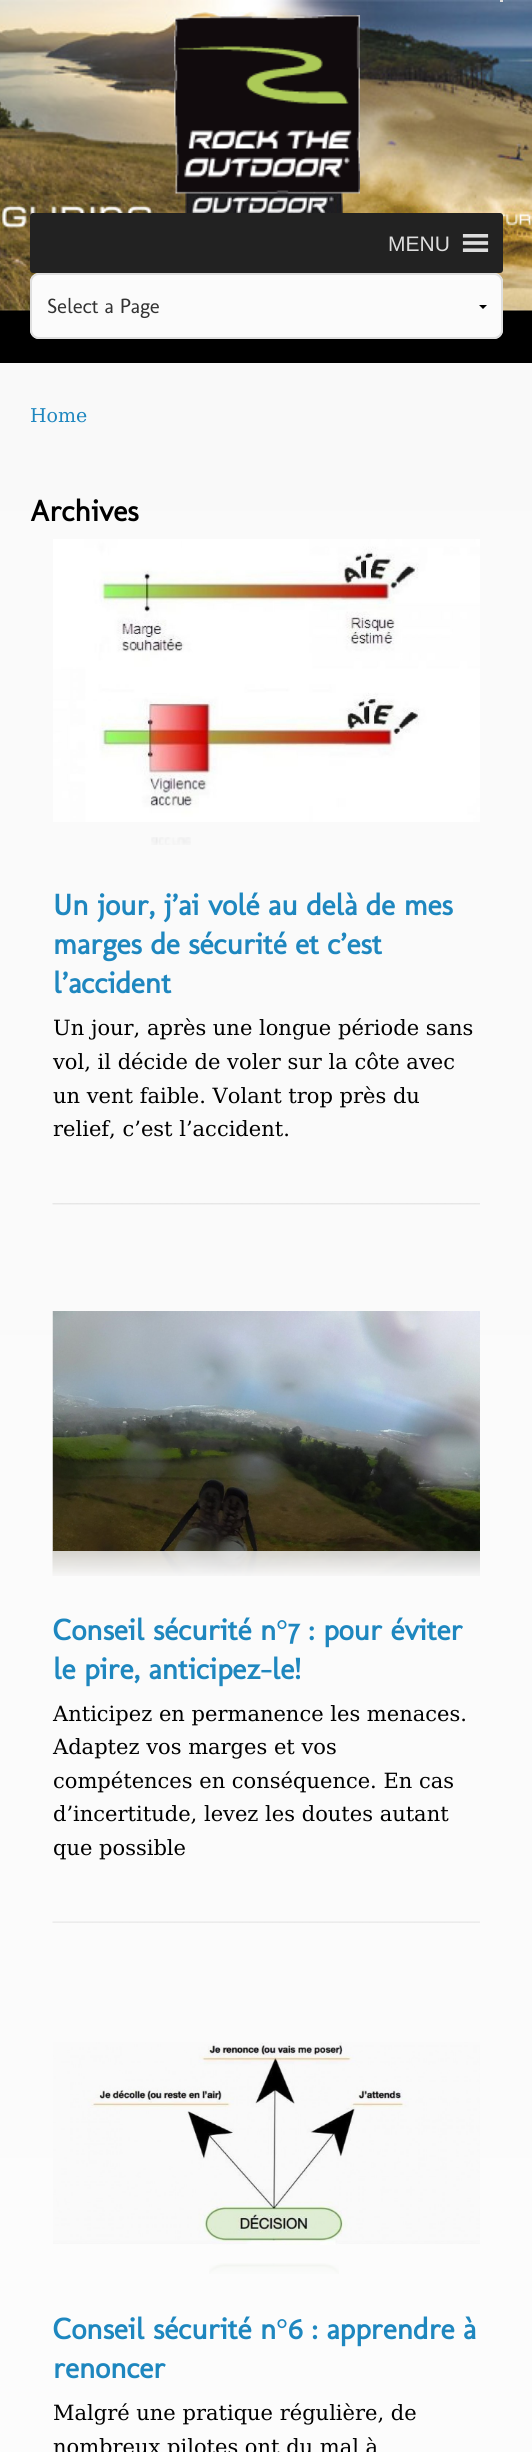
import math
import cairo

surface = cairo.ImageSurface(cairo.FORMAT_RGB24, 532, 2452)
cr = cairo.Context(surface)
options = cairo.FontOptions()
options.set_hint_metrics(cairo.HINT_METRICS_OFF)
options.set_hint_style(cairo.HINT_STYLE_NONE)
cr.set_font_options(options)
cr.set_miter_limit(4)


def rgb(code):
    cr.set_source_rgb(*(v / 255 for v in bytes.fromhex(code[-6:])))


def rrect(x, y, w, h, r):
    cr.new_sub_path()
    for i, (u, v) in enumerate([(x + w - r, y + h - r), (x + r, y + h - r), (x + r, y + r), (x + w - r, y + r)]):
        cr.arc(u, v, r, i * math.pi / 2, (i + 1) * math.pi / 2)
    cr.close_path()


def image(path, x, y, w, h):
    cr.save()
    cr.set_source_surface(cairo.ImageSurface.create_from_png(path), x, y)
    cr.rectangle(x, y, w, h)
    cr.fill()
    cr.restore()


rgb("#ffffff")
cr.paint()
rgb("#000000")
cr.rectangle(0, 310, 532, 53)
cr.fill()
image("img/1.png", 0, 0, 532, 311)
rgb("#dfdfdf")
cr.rectangle(500, 0, 3, 2)
cr.fill()
image("img/2.png", 174, 15, 186, 179)
rgb("#222222")
rrect(30, 213, 473, 60, 3)
cr.fill()
image("img/3.png", 462, 234, 27, 18)
rgb("#fbfbfb")
rrect(30, 273, 473, 66, 9)
cr.fill()
cr.save()
cr.rectangle(465, 305, 36, 5)
cr.clip()
rgb("#000000")
cr.new_path()
cr.move_to(487.5, 304.5)
cr.line_to(483, 309)
cr.line_to(478.5, 304.5)
cr.close_path()
cr.fill()
cr.restore()
rrect(31, 274, 471, 64, 8)
rgb("#dfdfdf")
cr.stroke()
gradient = cairo.LinearGradient(0, 0, 0, 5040)
gradient.add_color_stop_rgba(0, 0.976, 0.976, 0.976, 1)
gradient.add_color_stop_rgba(1, 1, 1, 1, 1)
cr.set_source(gradient)
cr.rectangle(0, 363, 532, 2089)
cr.fill()
image("img/4.png", 53, 539, 427, 283)
image("img/5.png", 151, 837, 40, 8)
image("img/6.png", 52, 1203, 428, 2)
image("img/7.png", 52, 1311, 428, 240)
image("img/8.png", 52, 1551, 428, 25)
image("img/9.png", 52, 1921, 428, 2)
image("img/10.png", 53, 2042, 427, 203)
image("img/11.png", 209, 2263, 130, 11)
cr.select_font_face("Liberation Sans")
cr.set_font_size(21)
rgb("#dddddd")
cr.move_to(388, 251)
cr.show_text("MENU")
cr.select_font_face("Molengo")
rgb("#333333")
cr.move_to(47, 313)
cr.show_text("Select a Page")
cr.select_font_face("DejaVu Serif")
cr.set_font_size(19)
rgb("#1e87bf")
cr.move_to(30, 422)
cr.show_text("Home")
cr.select_font_face("Molengo", cairo.FONT_SLANT_NORMAL, cairo.FONT_WEIGHT_BOLD)
cr.set_font_size(30)
rgb("#000000")
cr.move_to(30, 521)
cr.show_text("Archives")
rgb("#1e87bf")
for x, y, s in [
    (53, 915, "Un jour, j’ai volé au delà de mes"),
    (53, 954, "marges de sécurité et c’est"),
    (53, 993, "l’accident"),
]:
    cr.move_to(x, y)
    cr.show_text(s)
cr.select_font_face("DejaVu Serif")
cr.set_font_size(21)
rgb("#000000")
for x, y, s in [
    (53, 1035, "Un jour, après une longue période sans"),
    (53, 1069, "vol, il décide de voler sur la côte avec"),
    (53, 1103, "un vent faible. Volant trop près du"),
    (53, 1136, "relief, c’est l’accident."),
]:
    cr.move_to(x, y)
    cr.show_text(s)
cr.select_font_face("Molengo", cairo.FONT_SLANT_NORMAL, cairo.FONT_WEIGHT_BOLD)
cr.set_font_size(30)
rgb("#1e87bf")
cr.move_to(53, 1640)
cr.show_text("Conseil sécurité n")
cr.select_font_face("Liberation Serif", cairo.FONT_SLANT_NORMAL, cairo.FONT_WEIGHT_BOLD)
cr.move_to(276, 1640)
cr.show_text("°")
cr.select_font_face("Molengo", cairo.FONT_SLANT_NORMAL, cairo.FONT_WEIGHT_BOLD)
cr.move_to(288, 1640)
cr.show_text("7 : pour éviter")
cr.move_to(53, 1679)
cr.show_text("le pire, anticipez-le!")
cr.select_font_face("DejaVu Serif")
cr.set_font_size(21)
rgb("#000000")
for x, y, s in [
    (53, 1721, "Anticipez en permanence les menaces."),
    (53, 1754, "Adaptez vos marges et vos"),
    (53, 1788, "compétences en conséquence. En cas"),
    (53, 1821, "d’incertitude, levez les doutes autant"),
    (53, 1855, "que possible"),
]:
    cr.move_to(x, y)
    cr.show_text(s)
cr.select_font_face("Molengo", cairo.FONT_SLANT_NORMAL, cairo.FONT_WEIGHT_BOLD)
cr.set_font_size(30)
rgb("#1e87bf")
cr.move_to(53, 2339)
cr.show_text("Conseil sécurité n")
cr.select_font_face("Liberation Serif", cairo.FONT_SLANT_NORMAL, cairo.FONT_WEIGHT_BOLD)
cr.move_to(276, 2339)
cr.show_text("°")
cr.select_font_face("Molengo", cairo.FONT_SLANT_NORMAL, cairo.FONT_WEIGHT_BOLD)
cr.move_to(288, 2339)
cr.show_text("6 : apprendre à")
cr.move_to(53, 2378)
cr.show_text("renoncer")
cr.select_font_face("DejaVu Serif")
cr.set_font_size(21)
rgb("#000000")
cr.move_to(53, 2420)
cr.show_text("Malgré une pratique régulière, de")
cr.move_to(53, 2454)
cr.show_text("nombreux pilotes ont du mal à")
surface.write_to_png("page.png")
